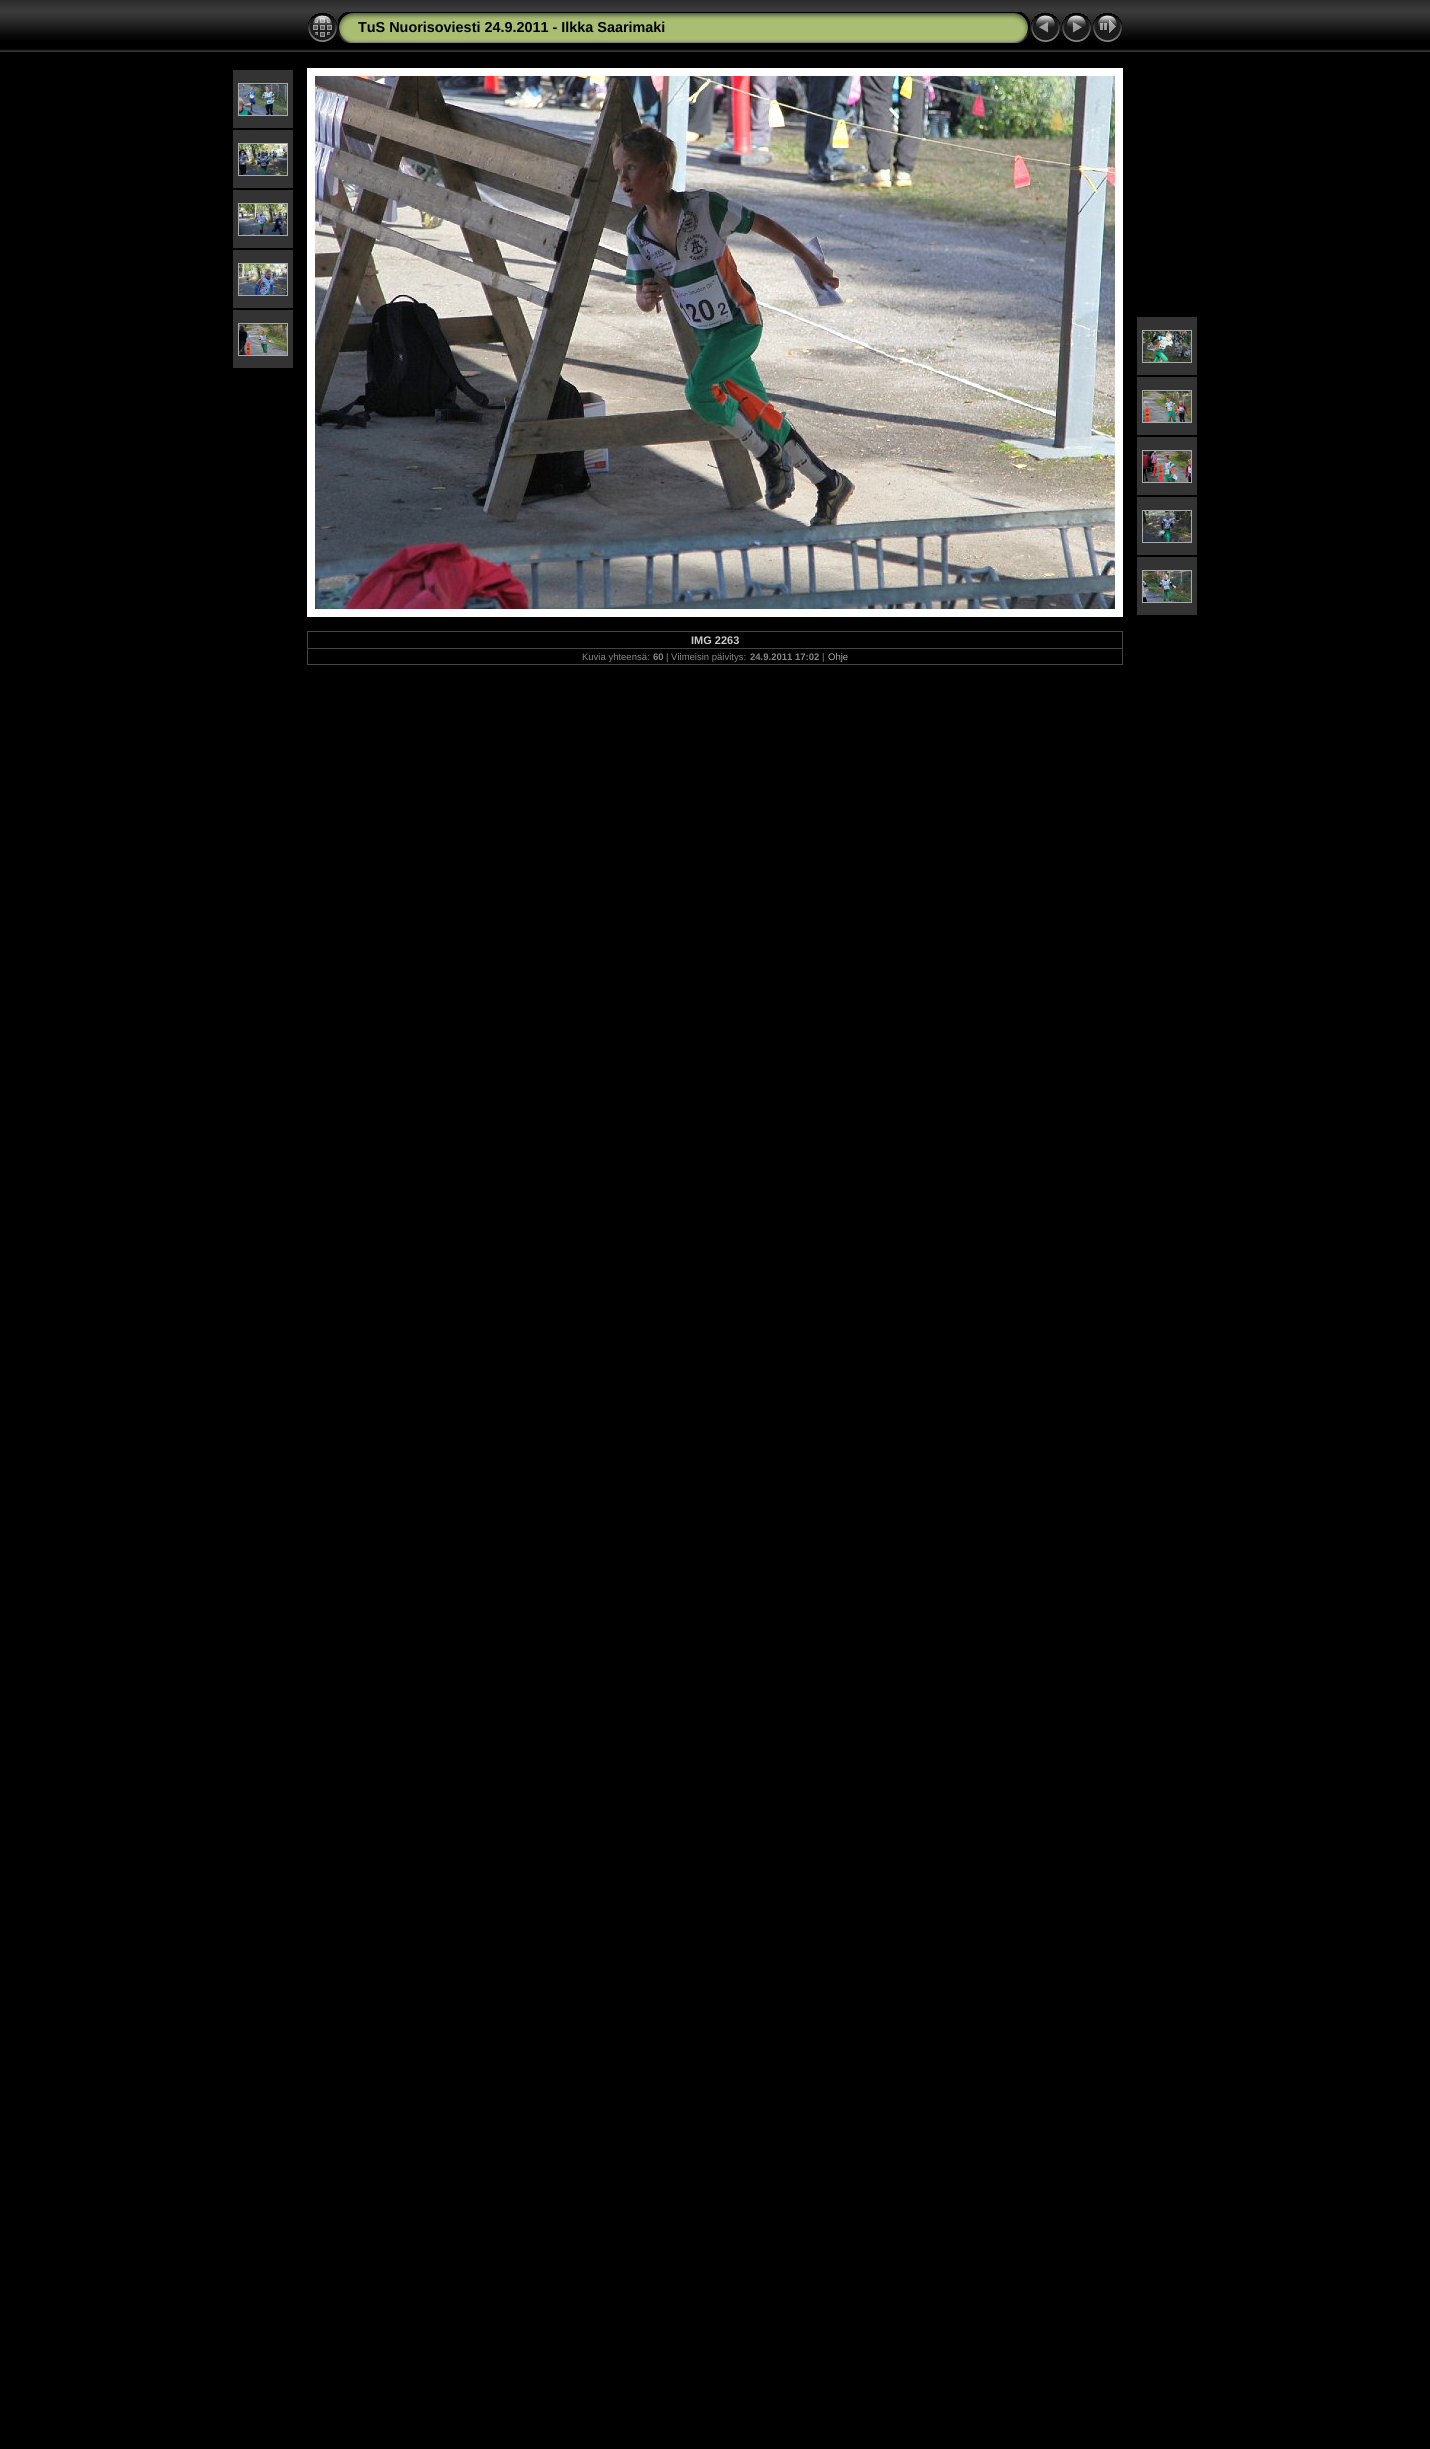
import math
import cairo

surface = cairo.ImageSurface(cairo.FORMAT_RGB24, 1430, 2449)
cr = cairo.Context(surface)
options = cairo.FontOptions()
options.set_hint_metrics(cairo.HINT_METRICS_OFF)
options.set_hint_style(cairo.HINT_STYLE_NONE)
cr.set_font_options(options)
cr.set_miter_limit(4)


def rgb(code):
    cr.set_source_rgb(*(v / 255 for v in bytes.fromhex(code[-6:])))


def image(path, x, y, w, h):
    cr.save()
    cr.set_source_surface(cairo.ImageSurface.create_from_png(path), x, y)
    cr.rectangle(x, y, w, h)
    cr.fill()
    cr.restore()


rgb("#000000")
cr.paint()
image("img/1.png", 0, 0, 1430, 52)
image("img/2.png", 308, 13, 29, 29)
image("img/3.png", 338, 12, 20, 31)
image("img/4.png", 358, 12, 652, 31)
image("img/5.png", 1010, 12, 20, 31)
image("img/6.png", 1031, 13, 29, 29)
image("img/7.png", 1062, 13, 29, 29)
image("img/8.png", 1093, 13, 29, 29)
rgb("#333333")
cr.rectangle(233, 70, 60, 58)
cr.fill()
cr.rectangle(238.5, 83.5, 49, 32)
rgb("#aaaaaa")
cr.set_line_width(1)
cr.stroke()
image("img/9.png", 239, 84, 48, 31)
rgb("#333333")
cr.rectangle(233, 130, 60, 58)
cr.fill()
cr.rectangle(238.5, 143.5, 49, 32)
rgb("#aaaaaa")
cr.stroke()
image("img/10.png", 239, 144, 48, 31)
rgb("#333333")
cr.rectangle(233, 190, 60, 58)
cr.fill()
cr.rectangle(238.5, 203.5, 49, 32)
rgb("#aaaaaa")
cr.stroke()
image("img/11.png", 239, 204, 48, 31)
rgb("#333333")
cr.rectangle(233, 250, 60, 58)
cr.fill()
cr.rectangle(238.5, 263.5, 49, 32)
rgb("#aaaaaa")
cr.stroke()
image("img/12.png", 239, 264, 48, 31)
rgb("#333333")
cr.rectangle(233, 310, 60, 58)
cr.fill()
cr.rectangle(238.5, 323.5, 49, 32)
rgb("#aaaaaa")
cr.stroke()
image("img/13.png", 239, 324, 48, 31)
cr.rectangle(311, 72, 808, 541)
rgb("#ffffff")
cr.set_line_width(8)
cr.stroke()
image("img/14.png", 315, 76, 800, 533)
rgb("#333333")
cr.rectangle(1137, 317, 60, 58)
cr.fill()
cr.rectangle(1142.5, 330.5, 49, 32)
rgb("#aaaaaa")
cr.set_line_width(1)
cr.stroke()
image("img/15.png", 1143, 331, 48, 31)
rgb("#333333")
cr.rectangle(1137, 377, 60, 58)
cr.fill()
cr.rectangle(1142.5, 390.5, 49, 32)
rgb("#aaaaaa")
cr.stroke()
image("img/16.png", 1143, 391, 48, 31)
rgb("#333333")
cr.rectangle(1137, 437, 60, 58)
cr.fill()
cr.rectangle(1142.5, 450.5, 49, 32)
rgb("#aaaaaa")
cr.stroke()
image("img/17.png", 1143, 451, 48, 31)
rgb("#333333")
cr.rectangle(1137, 497, 60, 58)
cr.fill()
cr.rectangle(1142.5, 510.5, 49, 32)
rgb("#aaaaaa")
cr.stroke()
image("img/18.png", 1143, 511, 48, 31)
rgb("#333333")
cr.rectangle(1137, 557, 60, 58)
cr.fill()
cr.rectangle(1142.5, 570.5, 49, 32)
rgb("#aaaaaa")
cr.stroke()
image("img/19.png", 1143, 571, 48, 31)
for x, y, w, h, color in [
    (307, 631, 816, 1, "#444444"),
    (1122, 631, 1, 34, "#444444"),
    (307, 664, 816, 1, "#444444"),
    (307, 631, 1, 34, "#444444"),
    (307, 648, 816, 1, "#444444"),
]:
    rgb(color)
    cr.rectangle(x, y, w, h)
    cr.fill()
cr.select_font_face("Liberation Sans", cairo.FONT_SLANT_NORMAL, cairo.FONT_WEIGHT_BOLD)
cr.set_font_size(14.4)
rgb("#000000")
cr.move_to(358, 32)
cr.show_text("TuS Nuorisoviesti 24.9.2011 - Ilkka Saarimaki")
cr.set_font_size(11)
rgb("#cccccc")
cr.move_to(691, 644)
cr.show_text("IMG 2263")
cr.select_font_face("Liberation Sans")
cr.set_font_size(9.5)
rgb("#888888")
cr.move_to(582, 660)
cr.show_text("Kuvia yhteensä:")
cr.select_font_face("Liberation Sans", cairo.FONT_SLANT_NORMAL, cairo.FONT_WEIGHT_BOLD)
cr.move_to(653, 660)
cr.show_text("60")
cr.select_font_face("Liberation Sans")
cr.move_to(666, 660)
cr.show_text("| Viimeisin päivitys:")
cr.select_font_face("Liberation Sans", cairo.FONT_SLANT_NORMAL, cairo.FONT_WEIGHT_BOLD)
cr.move_to(750, 660)
cr.show_text("24.9.2011 17:02")
cr.select_font_face("Liberation Sans")
cr.move_to(822, 660)
cr.show_text("|")
rgb("#aaaaaa")
cr.move_to(828, 660)
cr.show_text("Ohje")
surface.write_to_png("page.png")
